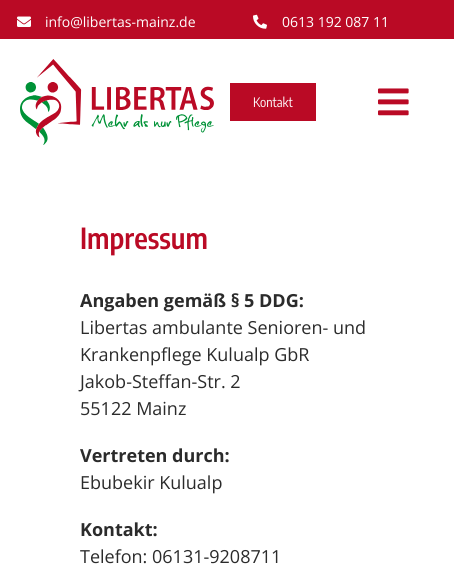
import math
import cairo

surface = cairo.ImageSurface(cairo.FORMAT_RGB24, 454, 568)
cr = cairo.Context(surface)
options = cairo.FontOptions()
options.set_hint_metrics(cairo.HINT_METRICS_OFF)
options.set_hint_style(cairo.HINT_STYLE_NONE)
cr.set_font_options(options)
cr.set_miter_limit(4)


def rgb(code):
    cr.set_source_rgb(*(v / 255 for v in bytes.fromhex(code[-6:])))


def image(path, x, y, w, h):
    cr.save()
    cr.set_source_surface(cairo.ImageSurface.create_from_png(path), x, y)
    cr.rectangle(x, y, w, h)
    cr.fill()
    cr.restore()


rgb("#ffffff")
cr.paint()
rgb("#ba0a25")
cr.rectangle(0, 0, 454, 39)
cr.fill()
image("img/1.png", 17, 16, 14, 11)
image("img/2.png", 253, 14, 14, 15)
image("img/3.png", 20, 59, 194, 86)
cr.rectangle(230, 83, 86, 38)
cr.fill()
image("img/4.png", 378, 88, 31, 28)
cr.select_font_face("Open Sans")
cr.set_font_size(14)
rgb("#ffffff")
cr.move_to(45, 27)
cr.show_text("info@libertas-mainz.de")
cr.move_to(282, 27)
cr.show_text("0613 192 087 11")
cr.select_font_face("Encode Sans Condensed")
cr.set_font_size(13)
cr.move_to(253, 107)
cr.show_text("Kontakt")
cr.select_font_face("Encode Sans Condensed SemiBold")
cr.set_font_size(29)
rgb("#ba0a25")
cr.move_to(80, 249)
cr.show_text("Impressum")
cr.select_font_face("Open Sans", cairo.FONT_SLANT_NORMAL, cairo.FONT_WEIGHT_BOLD)
cr.set_font_size(18)
rgb("#2b2b2b")
cr.move_to(80, 307)
cr.show_text("Angaben gemäß § 5 DDG:")
cr.select_font_face("Open Sans")
for x, y, s in [
    (80, 334, "Libertas ambulante Senioren- und"),
    (80, 361, "Krankenpflege Kulualp GbR"),
    (80, 388, "Jakob-Steffan-Str. 2"),
    (80, 415, "55122 Mainz"),
]:
    cr.move_to(x, y)
    cr.show_text(s)
cr.select_font_face("Open Sans", cairo.FONT_SLANT_NORMAL, cairo.FONT_WEIGHT_BOLD)
cr.move_to(80, 462)
cr.show_text("Vertreten durch:")
cr.select_font_face("Open Sans")
cr.move_to(80, 489)
cr.show_text("Ebubekir Kulualp")
cr.select_font_face("Open Sans", cairo.FONT_SLANT_NORMAL, cairo.FONT_WEIGHT_BOLD)
cr.move_to(80, 536)
cr.show_text("Kontakt:")
cr.select_font_face("Open Sans")
cr.move_to(80, 563)
cr.show_text("Telefon: 06131-9208711")
surface.write_to_png("page.png")
